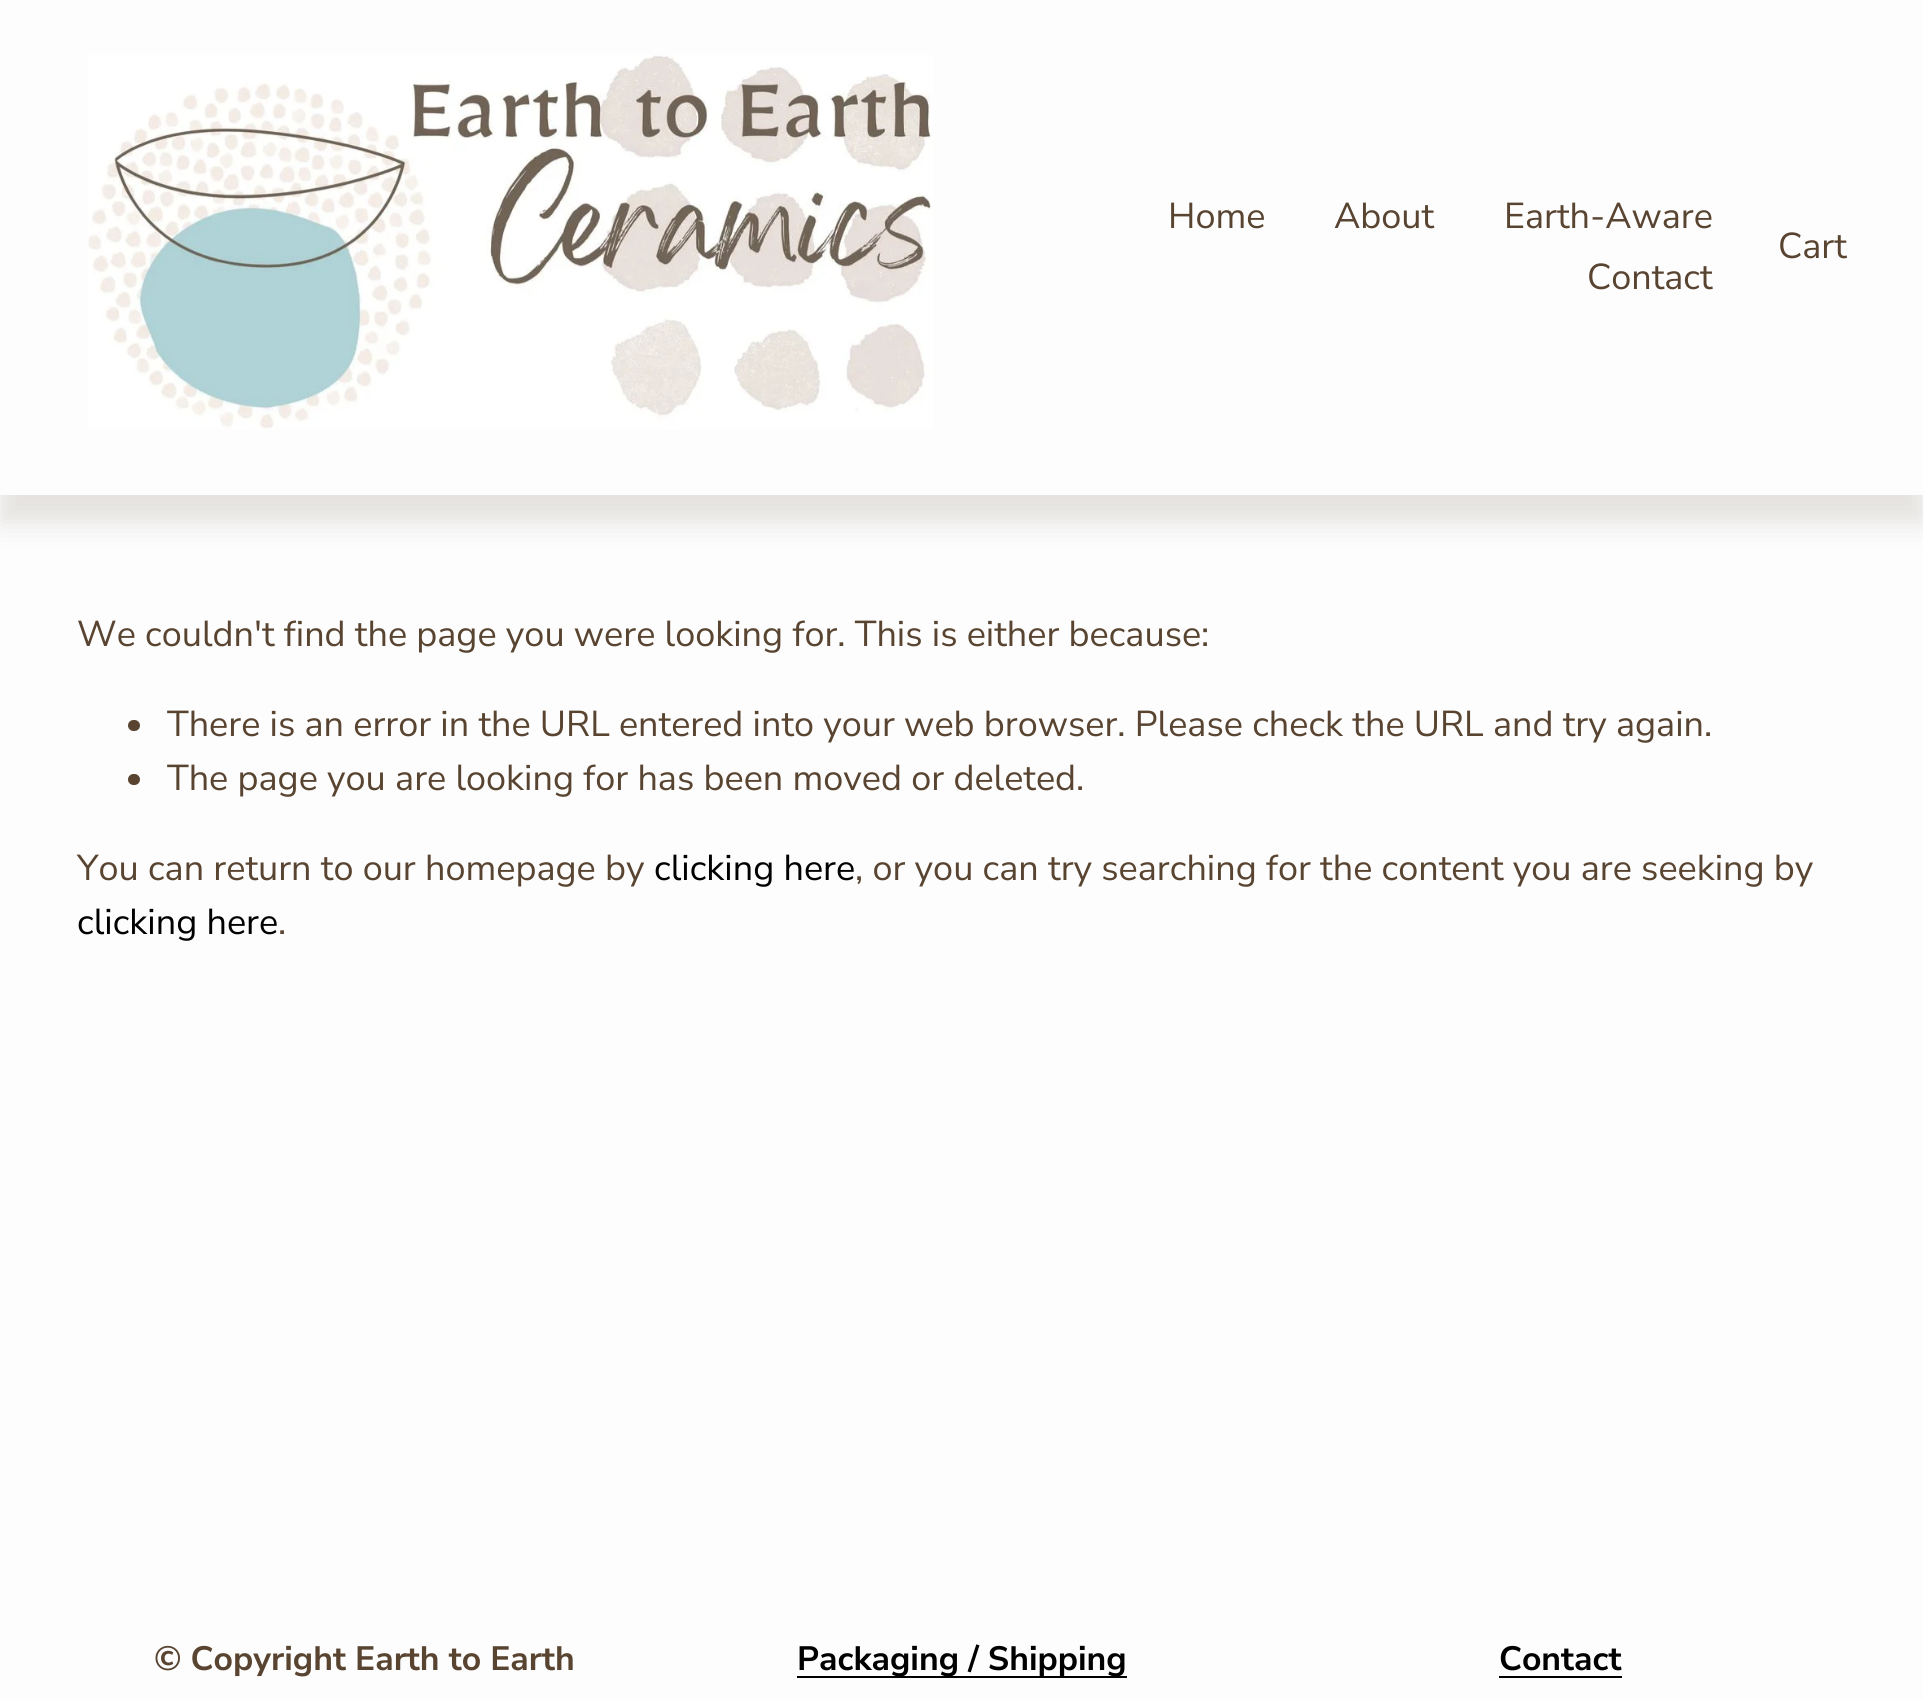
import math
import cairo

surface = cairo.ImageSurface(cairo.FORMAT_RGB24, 1923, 1701)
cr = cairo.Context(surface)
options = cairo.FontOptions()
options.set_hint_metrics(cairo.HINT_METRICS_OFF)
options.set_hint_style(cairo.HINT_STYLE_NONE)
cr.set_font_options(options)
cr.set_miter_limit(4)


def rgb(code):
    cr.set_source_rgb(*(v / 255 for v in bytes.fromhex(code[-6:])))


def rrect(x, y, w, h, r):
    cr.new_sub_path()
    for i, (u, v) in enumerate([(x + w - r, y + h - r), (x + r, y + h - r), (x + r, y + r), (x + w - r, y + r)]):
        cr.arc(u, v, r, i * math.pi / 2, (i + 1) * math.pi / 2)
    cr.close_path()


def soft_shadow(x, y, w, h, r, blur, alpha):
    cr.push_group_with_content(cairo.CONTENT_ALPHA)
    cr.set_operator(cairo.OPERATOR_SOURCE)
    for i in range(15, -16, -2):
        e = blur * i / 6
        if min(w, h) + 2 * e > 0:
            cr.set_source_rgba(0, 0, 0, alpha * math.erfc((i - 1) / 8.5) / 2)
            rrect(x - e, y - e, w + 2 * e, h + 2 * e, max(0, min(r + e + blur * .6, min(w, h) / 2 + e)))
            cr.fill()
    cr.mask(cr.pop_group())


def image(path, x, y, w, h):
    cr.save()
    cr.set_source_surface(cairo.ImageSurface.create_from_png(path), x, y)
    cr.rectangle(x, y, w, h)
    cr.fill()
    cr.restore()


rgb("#fdfdfd")
cr.paint()
cr.save()
cr.rectangle(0, 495, 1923, 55)
cr.clip()
rgb("#e4e1de")
soft_shadow(0, 27, 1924, 495, 0, 13.5, 1)
cr.restore()
image("img/1.png", 88, 55, 845, 374)
rgb("#584430")
rrect(128, 720, 12, 11, 5.5)
cr.fill()
rrect(128, 774, 12, 11, 5.5)
cr.fill()
rgb("#000000")
cr.rectangle(797, 1676, 330, 2)
cr.fill()
cr.rectangle(1499, 1676, 123, 2)
cr.fill()
cr.select_font_face("Nunito Sans")
cr.set_font_size(36)
rgb("#584430")
for x, y, s in [
    (1168, 228, "Home"),
    (1334, 228, "About"),
    (1504, 228, "Earth-Aware"),
    (1587, 289, "Contact"),
    (1778, 258, "Cart"),
    (77, 646, "We couldn't find the page you were looking for. This is either because:"),
    (167, 736, "There is an error in the URL entered into your web browser. Please check the URL and try again."),
    (167, 790, "The page you are looking for has been moved or deleted."),
    (77, 880, "You can return to our homepage by"),
]:
    cr.move_to(x, y)
    cr.show_text(s)
rgb("#000000")
cr.move_to(654, 880)
cr.show_text("clicking here")
rgb("#584430")
cr.move_to(855, 880)
cr.show_text(", or you can try searching for the content you are seeking by")
rgb("#000000")
cr.move_to(77, 934)
cr.show_text("clicking here")
rgb("#584430")
cr.move_to(278, 934)
cr.show_text(".")
cr.select_font_face("Nunito Sans", cairo.FONT_SLANT_NORMAL, cairo.FONT_WEIGHT_BOLD)
cr.set_font_size(33.75)
cr.move_to(154, 1670)
cr.show_text("© Copyright Earth to Earth")
rgb("#000000")
cr.move_to(797, 1670)
cr.show_text("Packaging / Shipping")
cr.move_to(1499, 1670)
cr.show_text("Contact")
surface.write_to_png("page.png")
